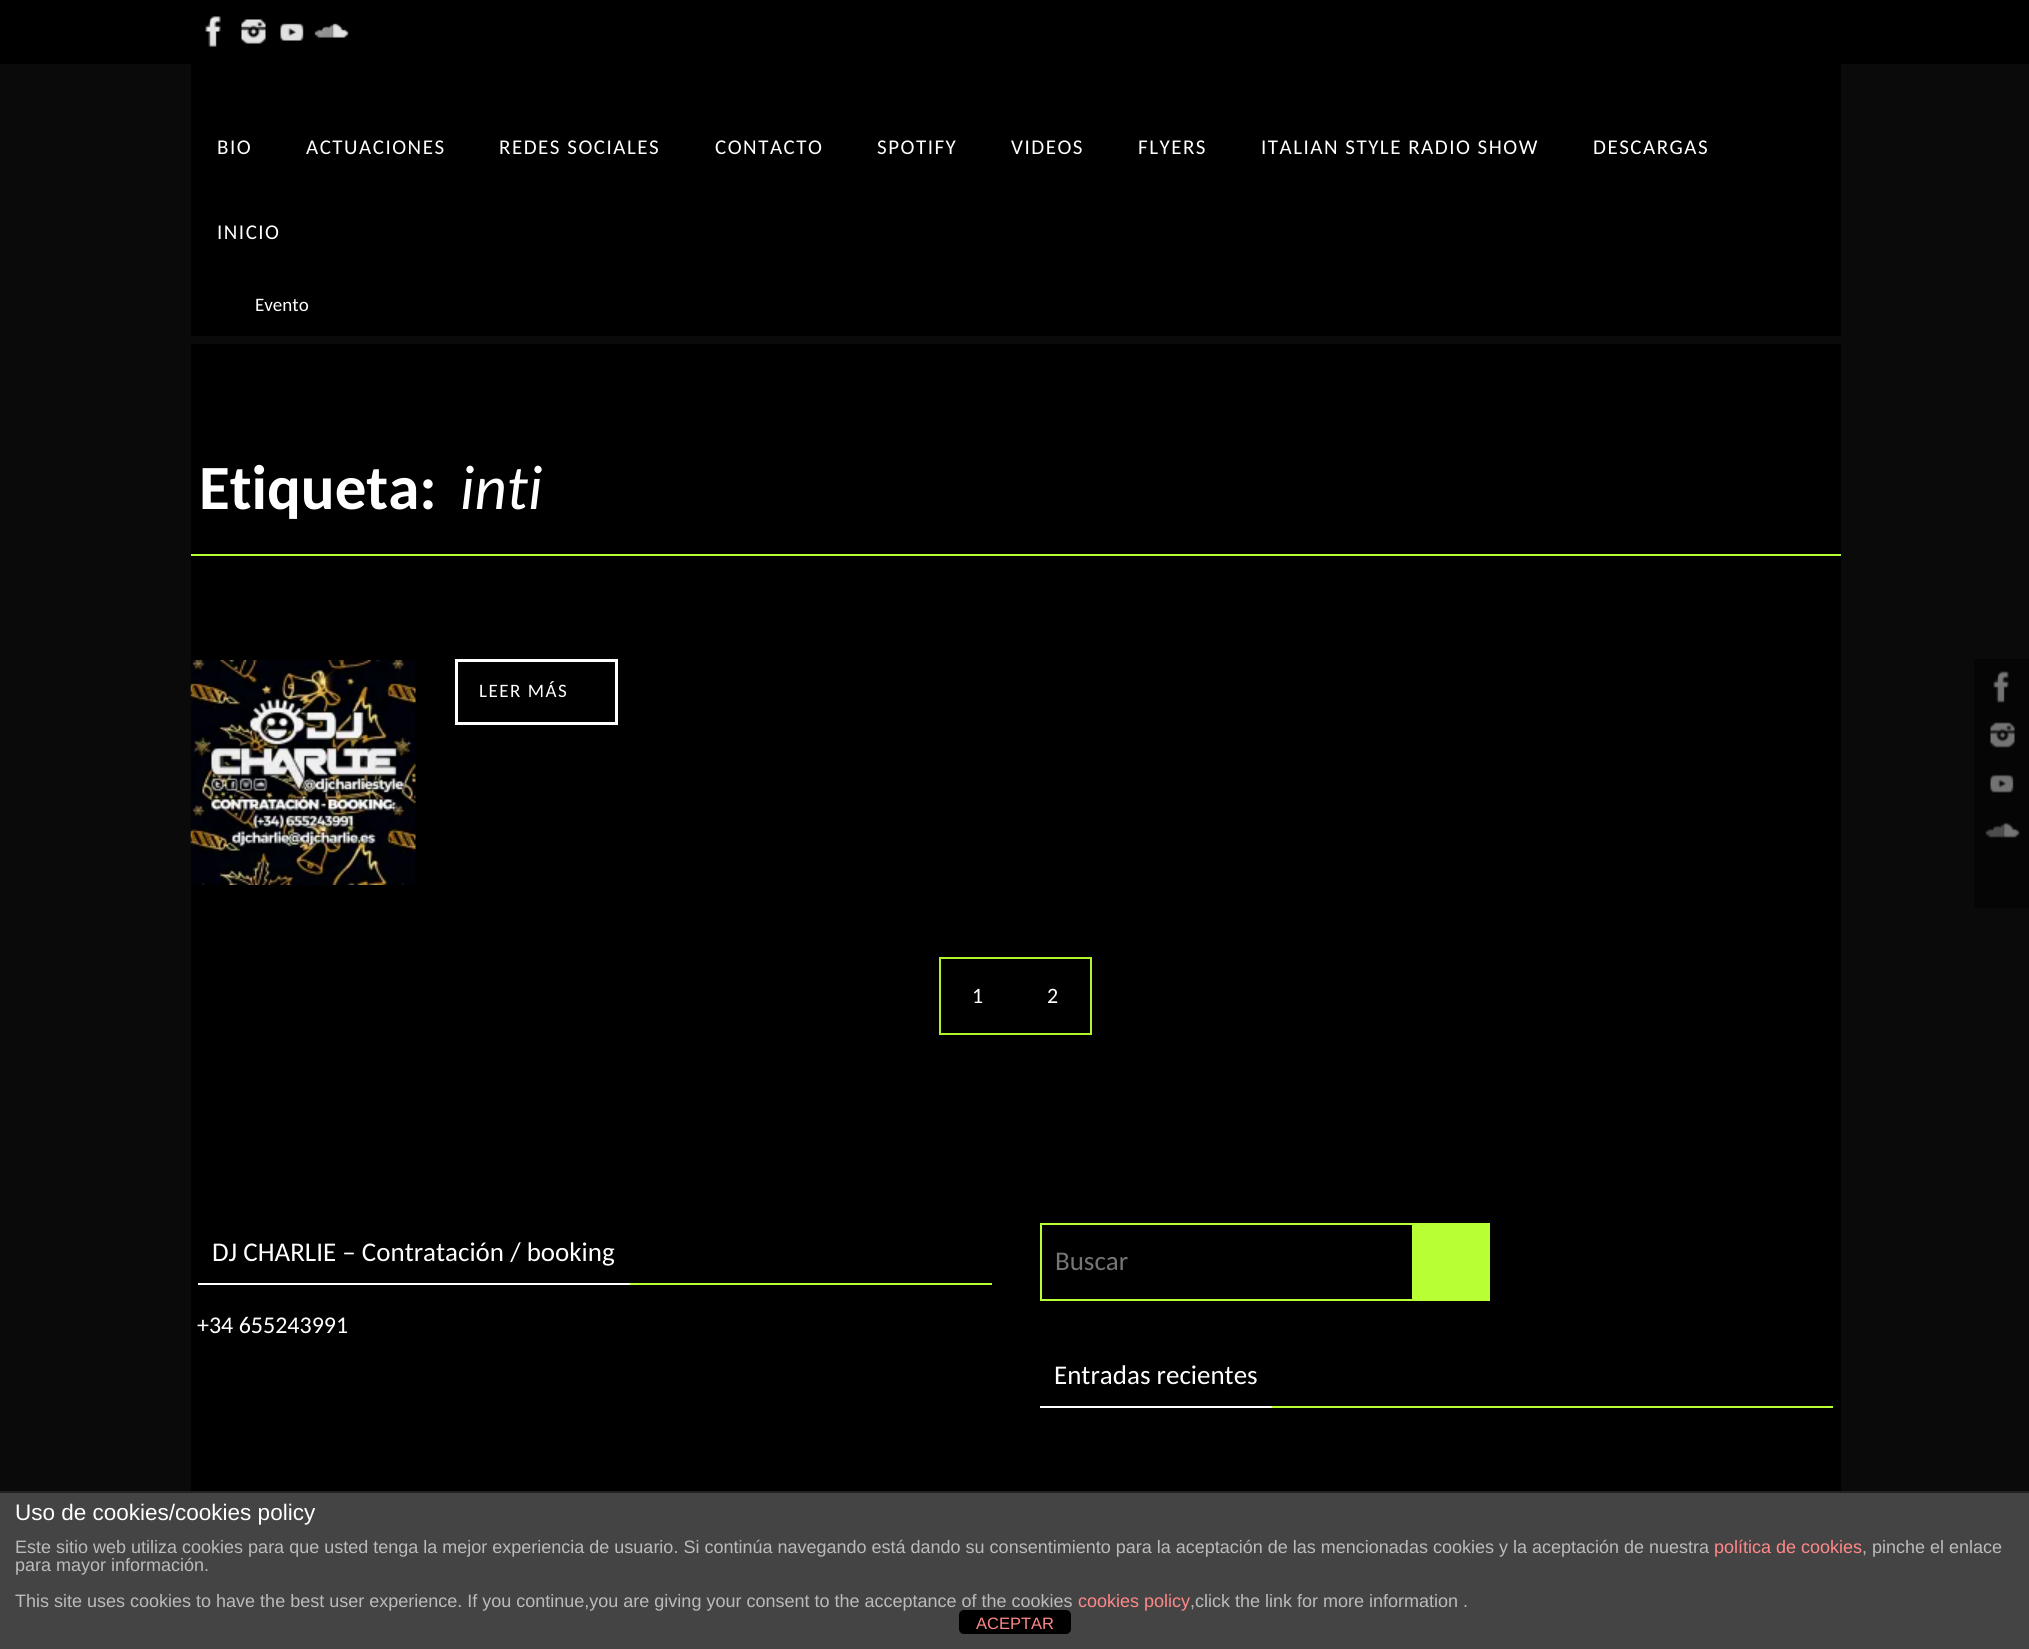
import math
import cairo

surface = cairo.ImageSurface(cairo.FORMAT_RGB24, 2029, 1649)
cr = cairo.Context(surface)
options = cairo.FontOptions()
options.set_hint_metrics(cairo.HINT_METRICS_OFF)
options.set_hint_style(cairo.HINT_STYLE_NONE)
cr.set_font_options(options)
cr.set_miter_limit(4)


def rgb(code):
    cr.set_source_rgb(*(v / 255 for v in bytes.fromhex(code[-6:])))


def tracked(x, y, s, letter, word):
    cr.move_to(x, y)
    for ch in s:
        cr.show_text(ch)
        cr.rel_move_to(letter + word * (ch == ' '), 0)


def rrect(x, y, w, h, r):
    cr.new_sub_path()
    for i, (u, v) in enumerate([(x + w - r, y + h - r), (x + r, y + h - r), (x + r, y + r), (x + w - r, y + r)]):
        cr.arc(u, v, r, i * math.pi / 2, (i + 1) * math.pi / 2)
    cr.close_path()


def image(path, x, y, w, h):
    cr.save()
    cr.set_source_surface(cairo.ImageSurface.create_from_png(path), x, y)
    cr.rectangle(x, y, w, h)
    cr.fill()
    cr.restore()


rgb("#0a0a0a")
cr.paint()
rgb("#000000")
cr.rectangle(0, 0, 2029, 64)
cr.fill()
image("img/1.png", 205, 16, 16, 31)
image("img/2.png", 241, 19, 25, 25)
image("img/3.png", 280, 23, 24, 18)
image("img/4.png", 314, 23, 35, 15)
for x, y, w, h, color in [
    (191, 64, 1650, 272, "#000000"),
    (191, 344, 1650, 1147, "#000000"),
    (191, 554, 1650, 2, "#b8ff34"),
]:
    rgb(color)
    cr.rectangle(x, y, w, h)
    cr.fill()
image("img/5.png", 190, 660, 226, 225)
cr.rectangle(456.5, 660.5, 160, 63)
rgb("#ffffff")
cr.set_line_width(3)
cr.stroke()
cr.rectangle(940, 958, 151, 76)
rgb("#aef52a")
cr.set_line_width(2)
cr.stroke()
rgb("#b8ff34")
cr.rectangle(630, 1283, 362, 2)
cr.fill()
rgb("#ffffff")
cr.rectangle(198, 1283, 432, 2)
cr.fill()
cr.rectangle(1041, 1224, 448, 76)
rgb("#b8ff34")
cr.stroke()
for x, y, w, h, color in [
    (1412, 1225, 76, 74, "#b8ff34"),
    (1272, 1406, 561, 2, "#b8ff34"),
    (1040, 1406, 232, 2, "#ffffff"),
]:
    rgb(color)
    cr.rectangle(x, y, w, h)
    cr.fill()
rgb("#050505")
rrect(1974, 659, 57, 57, 3)
cr.fill()
image("img/6.png", 1993, 671, 16, 32)
rrect(1974, 707, 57, 57, 3)
cr.fill()
image("img/7.png", 1990, 722, 25, 26)
rrect(1974, 755, 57, 57, 3)
cr.fill()
image("img/8.png", 1990, 774, 24, 19)
rrect(1974, 803, 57, 57, 3)
cr.fill()
image("img/9.png", 1985, 822, 35, 16)
rrect(1974, 851, 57, 57, 3)
cr.fill()
rgb("#444444")
cr.rectangle(0, 1493, 2029, 156)
cr.fill()
rgb("#222222")
cr.rectangle(0, 1491, 2029, 2)
cr.fill()
rgb("#000000")
rrect(959, 1610, 112, 24, 5)
cr.fill()
cr.select_font_face("Carlito")
cr.set_font_size(21)
rgb("#ffffff")
for x, y, s in [
    (217, 154, "BIO"),
    (306, 154, "ACTUACIONES"),
    (499, 154, "REDES SOCIALES"),
    (715, 154, "CONTACTO"),
    (877, 154, "SPOTIFY"),
    (1011, 154, "VIDEOS"),
    (1138, 154, "FLYERS"),
    (1261, 154, "ITALIAN STYLE RADIO SHOW"),
    (1593, 154, "DESCARGAS"),
    (217, 239, "INICIO"),
]:
    tracked(x, y, s, 1.5, 0)
cr.set_font_size(19)
cr.move_to(255, 311)
cr.show_text("Evento")
cr.select_font_face("Carlito", cairo.FONT_SLANT_NORMAL, cairo.FONT_WEIGHT_BOLD)
cr.set_font_size(63)
cr.move_to(199, 509)
cr.show_text("Etiqueta:")
cr.select_font_face("Carlito", cairo.FONT_SLANT_ITALIC)
cr.move_to(460, 509)
cr.show_text("inti")
cr.select_font_face("Carlito")
cr.set_font_size(19)
tracked(479, 697, "LEER MÁS", 1.5, 0)
cr.set_font_size(22)
cr.move_to(972, 1003)
cr.show_text("1")
cr.move_to(1047, 1003)
cr.show_text("2")
cr.set_font_size(27)
cr.move_to(212, 1261)
cr.show_text("DJ CHARLIE – Contratación / booking")
cr.set_font_size(24)
cr.move_to(197, 1333)
cr.show_text("+34 655243991")
cr.set_font_size(27)
rgb("#757575")
cr.move_to(1055, 1270)
cr.show_text("Buscar")
rgb("#ffffff")
cr.move_to(1054, 1384)
cr.show_text("Entradas recientes")
cr.select_font_face("Liberation Sans")
cr.set_font_size(22.5)
cr.move_to(15, 1520)
cr.show_text("Uso de cookies/cookies policy")
cr.set_font_size(18)
rgb("#bbbbbb")
cr.move_to(15, 1553)
cr.show_text("Este sitio web utiliza cookies para que usted tenga la mejor experiencia de usuario. Si continúa navegando está dando su consentimiento para la aceptación de las mencionadas cookies y la aceptación de nuestra")
rgb("#ff8888")
cr.move_to(1714, 1553)
cr.show_text("política de cookies")
rgb("#bbbbbb")
for x, y, s in [
    (1862, 1553, ", pinche el enlace"),
    (15, 1571, "para mayor información."),
    (15, 1607, "This site uses cookies to have the best user experience. If you continue,you are giving your consent to the acceptance of the cookies"),
]:
    cr.move_to(x, y)
    cr.show_text(s)
rgb("#ff8888")
cr.move_to(1078, 1607)
cr.show_text("cookies policy")
rgb("#bbbbbb")
cr.move_to(1190, 1607)
cr.show_text(",click the link for more information .")
cr.set_font_size(16.5)
rgb("#ff8888")
cr.move_to(976, 1629)
cr.show_text("ACEPTAR")
surface.write_to_png("page.png")
